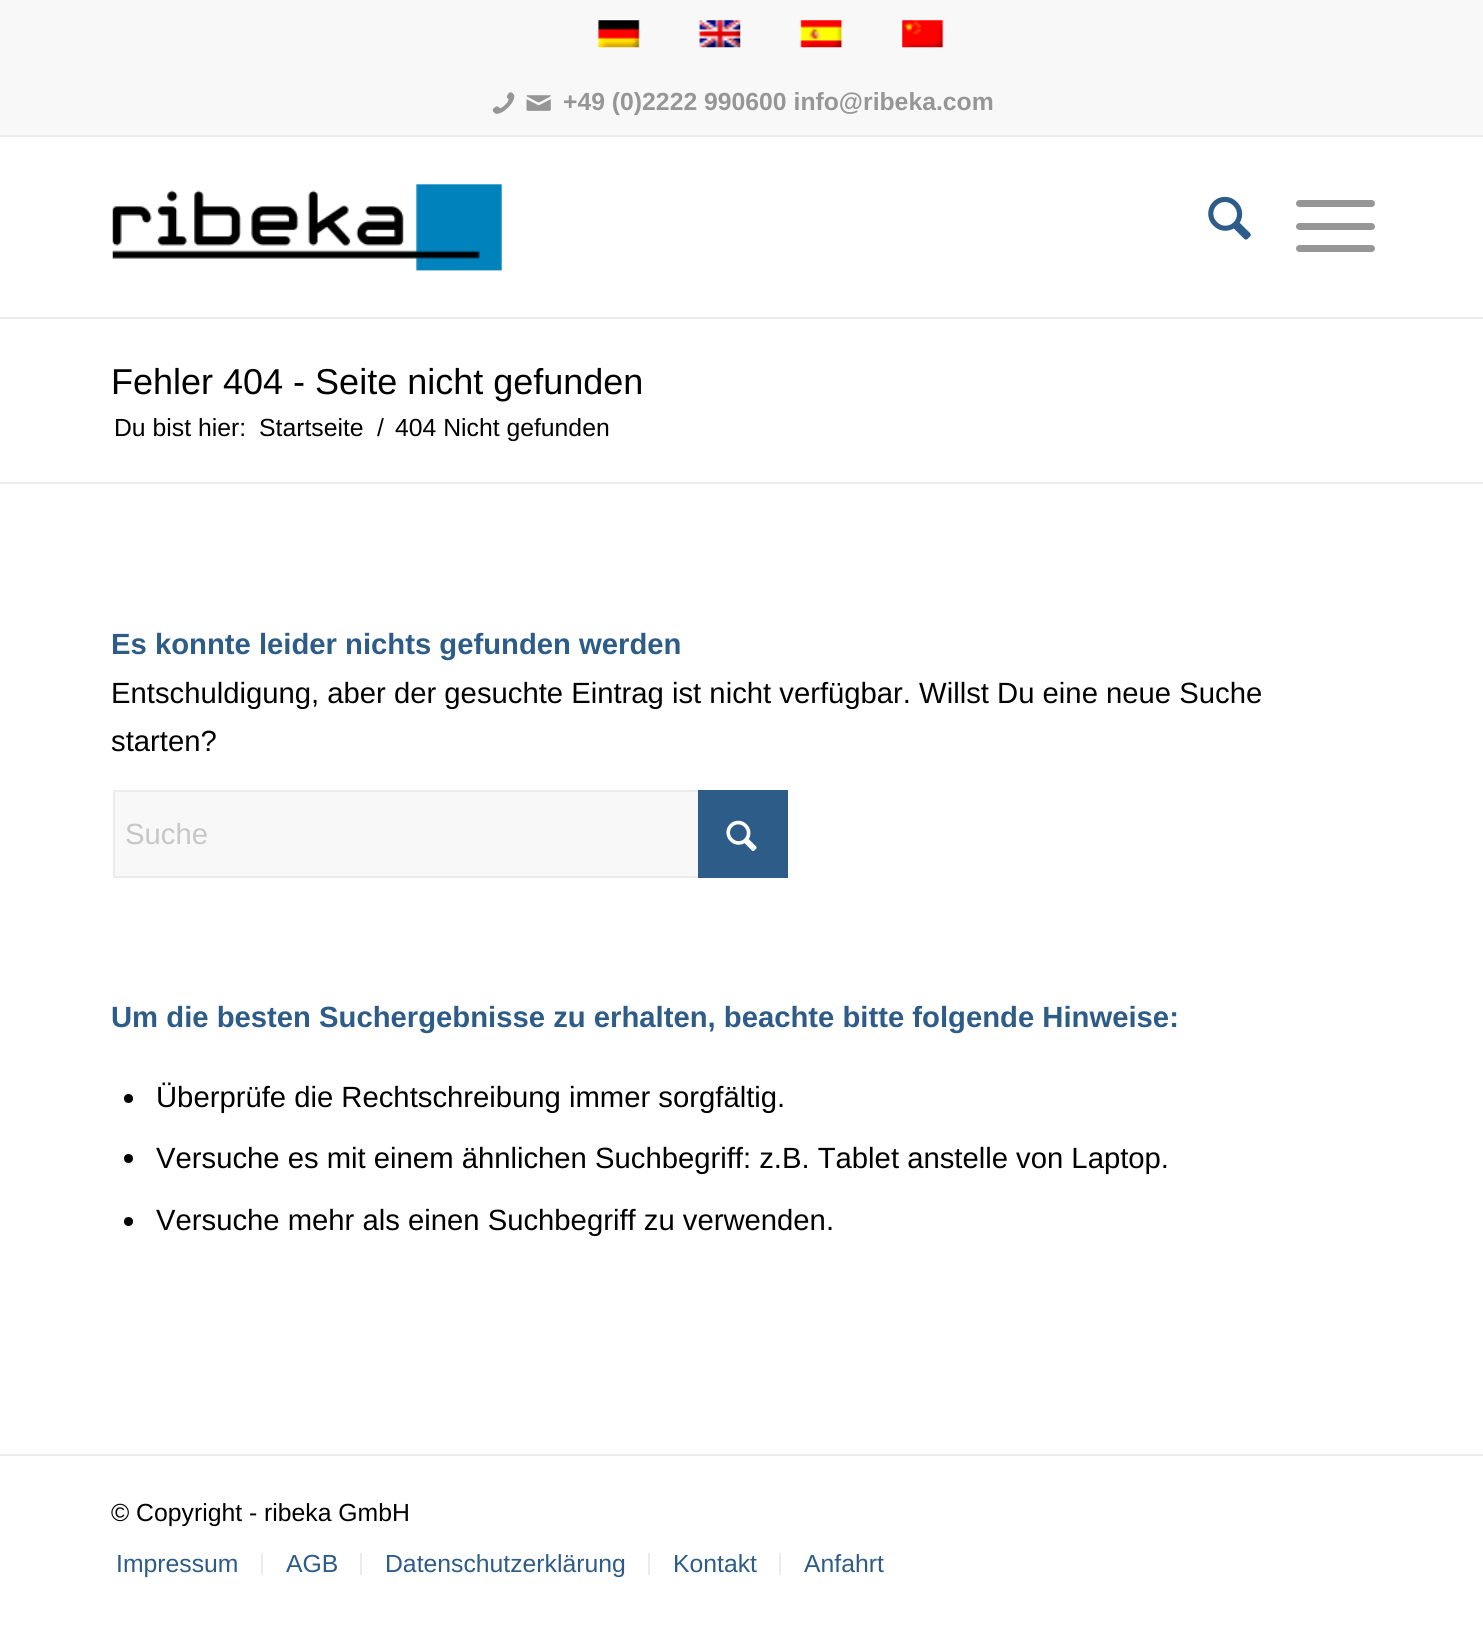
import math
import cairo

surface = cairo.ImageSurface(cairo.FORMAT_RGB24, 1483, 1643)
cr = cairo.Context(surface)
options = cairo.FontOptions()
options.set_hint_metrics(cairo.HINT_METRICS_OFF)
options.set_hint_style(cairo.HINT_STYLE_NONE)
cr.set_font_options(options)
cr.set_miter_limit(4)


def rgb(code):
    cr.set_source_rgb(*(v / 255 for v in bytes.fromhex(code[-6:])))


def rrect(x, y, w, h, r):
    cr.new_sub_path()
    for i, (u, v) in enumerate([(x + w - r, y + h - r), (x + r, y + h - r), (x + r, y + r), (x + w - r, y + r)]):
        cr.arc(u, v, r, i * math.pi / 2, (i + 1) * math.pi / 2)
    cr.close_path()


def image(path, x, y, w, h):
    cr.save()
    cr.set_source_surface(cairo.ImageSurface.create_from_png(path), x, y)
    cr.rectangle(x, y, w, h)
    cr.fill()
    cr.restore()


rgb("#ffffff")
cr.paint()
rgb("#f8f8f8")
cr.rectangle(0, 0, 1483, 135)
cr.fill()
rgb("#ebebeb")
cr.rectangle(0, 135, 1483, 2)
cr.fill()
image("img/1.png", 598, 20, 42, 28)
image("img/2.png", 699, 20, 42, 28)
image("img/3.png", 800, 20, 43, 28)
image("img/4.png", 902, 20, 42, 28)
image("img/5.png", 492, 92, 23, 22)
image("img/6.png", 526, 95, 25, 16)
cr.rectangle(0, 317, 1483, 2)
cr.fill()
image("img/7.png", 112, 184, 390, 87)
image("img/8.png", 1208, 196, 43, 44)
rgb("#969696")
rrect(1296, 223, 79, 7, 3.5)
cr.fill()
rrect(1296, 200, 79, 7, 3.5)
cr.fill()
rrect(1296, 245, 79, 7, 3.5)
cr.fill()
rgb("#ebebeb")
cr.rectangle(0, 482, 1483, 2)
cr.fill()
rgb("#f8f8f8")
cr.rectangle(115, 792, 583, 84)
cr.fill()
cr.rectangle(114, 791, 673, 86)
rgb("#ebebeb")
cr.stroke()
rgb("#2d5c88")
cr.rectangle(698, 790, 90, 88)
cr.fill()
image("img/9.png", 726, 820, 31, 31)
rgb("#000000")
cr.arc(128.5, 1098.5, 4.5, 0, 2 * math.pi)
cr.fill()
cr.arc(128.5, 1158.5, 4.5, 0, 2 * math.pi)
cr.fill()
cr.arc(128.5, 1221.5, 4.5, 0, 2 * math.pi)
cr.fill()
for x, y, w, h, color in [
    (0, 1454, 1483, 2, "#ebebeb"),
    (261, 1553, 2, 22, "#ebebeb"),
    (360, 1553, 2, 22, "#ebebeb"),
    (648, 1553, 2, 22, "#ebebeb"),
    (779, 1553, 2, 22, "#ebebeb"),
]:
    rgb(color)
    cr.rectangle(x, y, w, h)
    cr.fill()
cr.select_font_face("Liberation Sans", cairo.FONT_SLANT_NORMAL, cairo.FONT_WEIGHT_BOLD)
cr.set_font_size(24.75)
rgb("#969696")
cr.move_to(563, 110)
cr.show_text("+49 (0)2222 990600 info@ribeka.com")
cr.select_font_face("Liberation Sans")
cr.set_font_size(36)
rgb("#000000")
cr.move_to(111, 394)
cr.show_text("Fehler 404 - Seite nicht gefunden")
cr.set_font_size(24.75)
for x, y, s in [
    (114, 436, "Du bist hier:"),
    (259, 436, "Startseite"),
    (377, 436, "/"),
    (395, 436, "404 Nicht gefunden"),
]:
    cr.move_to(x, y)
    cr.show_text(s)
cr.select_font_face("Liberation Sans", cairo.FONT_SLANT_NORMAL, cairo.FONT_WEIGHT_BOLD)
cr.set_font_size(29.25)
rgb("#2d5c88")
cr.move_to(111, 654)
cr.show_text("Es konnte leider nichts gefunden werden")
cr.select_font_face("Liberation Sans")
rgb("#000000")
cr.move_to(111, 703)
cr.show_text("Entschuldigung, aber der gesuchte Eintrag ist nicht verfügbar. Willst Du eine neue Suche")
cr.move_to(111, 751)
cr.show_text("starten?")
rgb("#c7c7c7")
cr.move_to(125, 844)
cr.show_text("Suche")
cr.select_font_face("Liberation Sans", cairo.FONT_SLANT_NORMAL, cairo.FONT_WEIGHT_BOLD)
rgb("#2d5c88")
cr.move_to(111, 1027)
cr.show_text("Um die besten Suchergebnisse zu erhalten, beachte bitte folgende Hinweise:")
cr.select_font_face("Liberation Sans")
rgb("#000000")
for x, y, s in [
    (156, 1107, "Überprüfe die Rechtschreibung immer sorgfältig."),
    (156, 1168, "Versuche es mit einem ähnlichen Suchbegriff: z.B. Tablet anstelle von Laptop."),
    (156, 1230, "Versuche mehr als einen Suchbegriff zu verwenden."),
]:
    cr.move_to(x, y)
    cr.show_text(s)
cr.set_font_size(24.75)
cr.move_to(111, 1521)
cr.show_text("© Copyright - ribeka GmbH")
rgb("#2d5c88")
for x, y, s in [
    (116, 1572, "Impressum"),
    (286, 1572, "AGB"),
    (385, 1572, "Datenschutzerklärung"),
    (673, 1572, "Kontakt"),
    (804, 1572, "Anfahrt"),
]:
    cr.move_to(x, y)
    cr.show_text(s)
surface.write_to_png("page.png")
